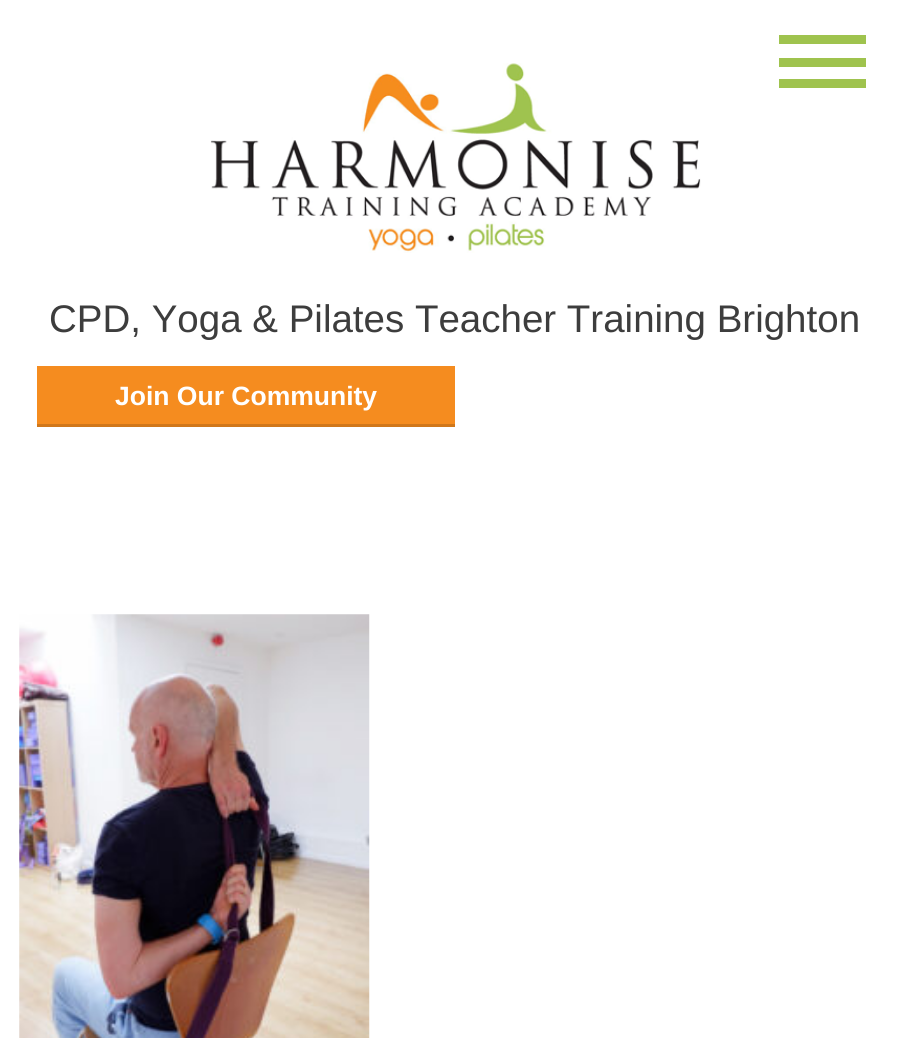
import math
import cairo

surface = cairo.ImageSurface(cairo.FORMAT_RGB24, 910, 1038)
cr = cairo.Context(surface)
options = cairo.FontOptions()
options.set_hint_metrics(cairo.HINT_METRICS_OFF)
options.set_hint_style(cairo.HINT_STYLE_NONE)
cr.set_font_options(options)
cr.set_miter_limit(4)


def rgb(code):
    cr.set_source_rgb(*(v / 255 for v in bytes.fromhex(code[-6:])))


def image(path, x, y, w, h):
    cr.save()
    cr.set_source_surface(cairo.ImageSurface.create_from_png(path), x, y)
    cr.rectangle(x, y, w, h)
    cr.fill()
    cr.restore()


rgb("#ffffff")
cr.paint()
image("img/1.png", 210, 63, 491, 190)
for x, y, w, h, color in [
    (779, 35, 87, 9, "#9fc34e"),
    (779, 79, 87, 9, "#9fc34e"),
    (779, 58, 87, 9, "#9fc34e"),
    (37, 366, 418, 58, "#f58c1f"),
    (37, 424, 418, 3, "#d0771a"),
]:
    rgb(color)
    cr.rectangle(x, y, w, h)
    cr.fill()
image("img/2.png", 19, 614, 351, 424)
cr.select_font_face("Liberation Sans")
cr.set_font_size(38.5)
rgb("#3d3d3d")
cr.move_to(49, 332)
cr.show_text("CPD, Yoga & Pilates Teacher Training Brighton")
cr.select_font_face("Liberation Sans", cairo.FONT_SLANT_NORMAL, cairo.FONT_WEIGHT_BOLD)
cr.set_font_size(26.5)
rgb("#ffffff")
cr.move_to(115, 405)
cr.show_text("Join Our Community")
surface.write_to_png("page.png")
